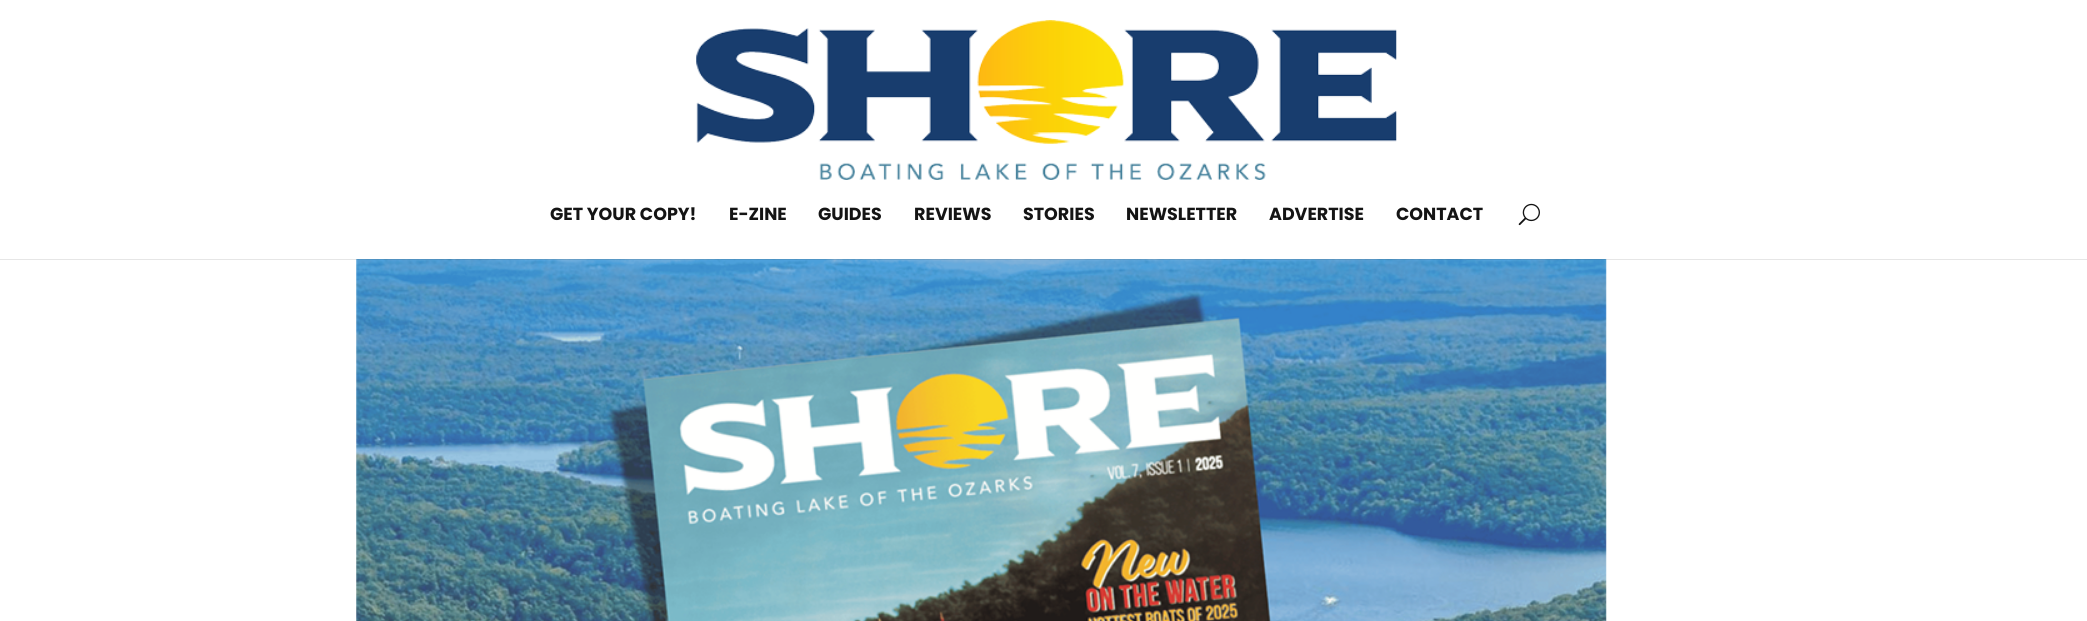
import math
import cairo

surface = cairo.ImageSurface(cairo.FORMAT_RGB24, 2087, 621)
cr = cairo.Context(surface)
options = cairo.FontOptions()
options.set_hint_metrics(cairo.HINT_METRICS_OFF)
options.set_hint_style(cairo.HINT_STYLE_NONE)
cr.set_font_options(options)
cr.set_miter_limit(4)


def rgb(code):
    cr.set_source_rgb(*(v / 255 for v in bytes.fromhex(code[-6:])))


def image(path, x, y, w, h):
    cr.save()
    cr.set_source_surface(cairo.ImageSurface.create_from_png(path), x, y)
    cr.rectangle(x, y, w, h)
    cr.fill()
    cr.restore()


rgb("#ffffff")
cr.paint()
image("img/3.png", 356, 259, 1251, 362)
cr.set_source_rgba(0, 0, 0, 0.1)
cr.new_path()
cr.move_to(0, 259)
cr.line_to(0, 260)
cr.line_to(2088, 260)
cr.line_to(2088, 1)
cr.line_to(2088, 259)
cr.close_path()
cr.fill()
image("img/1.png", 696, 20, 701, 160)
image("img/2.png", 1518, 203, 22, 23)
cr.select_font_face("Poppins", cairo.FONT_SLANT_NORMAL, cairo.FONT_WEIGHT_BOLD)
cr.set_font_size(17.5)
rgb("#141414")
for x, y, s in [
    (550, 220, "GET YOUR COPY!"),
    (729, 220, "E-ZINE"),
    (818, 220, "GUIDES"),
    (914, 220, "REVIEWS"),
    (1023, 220, "STORIES"),
    (1126, 220, "NEWSLETTER"),
    (1269, 220, "ADVERTISE"),
    (1396, 220, "CONTACT"),
]:
    cr.move_to(x, y)
    cr.show_text(s)
surface.write_to_png("page.png")
